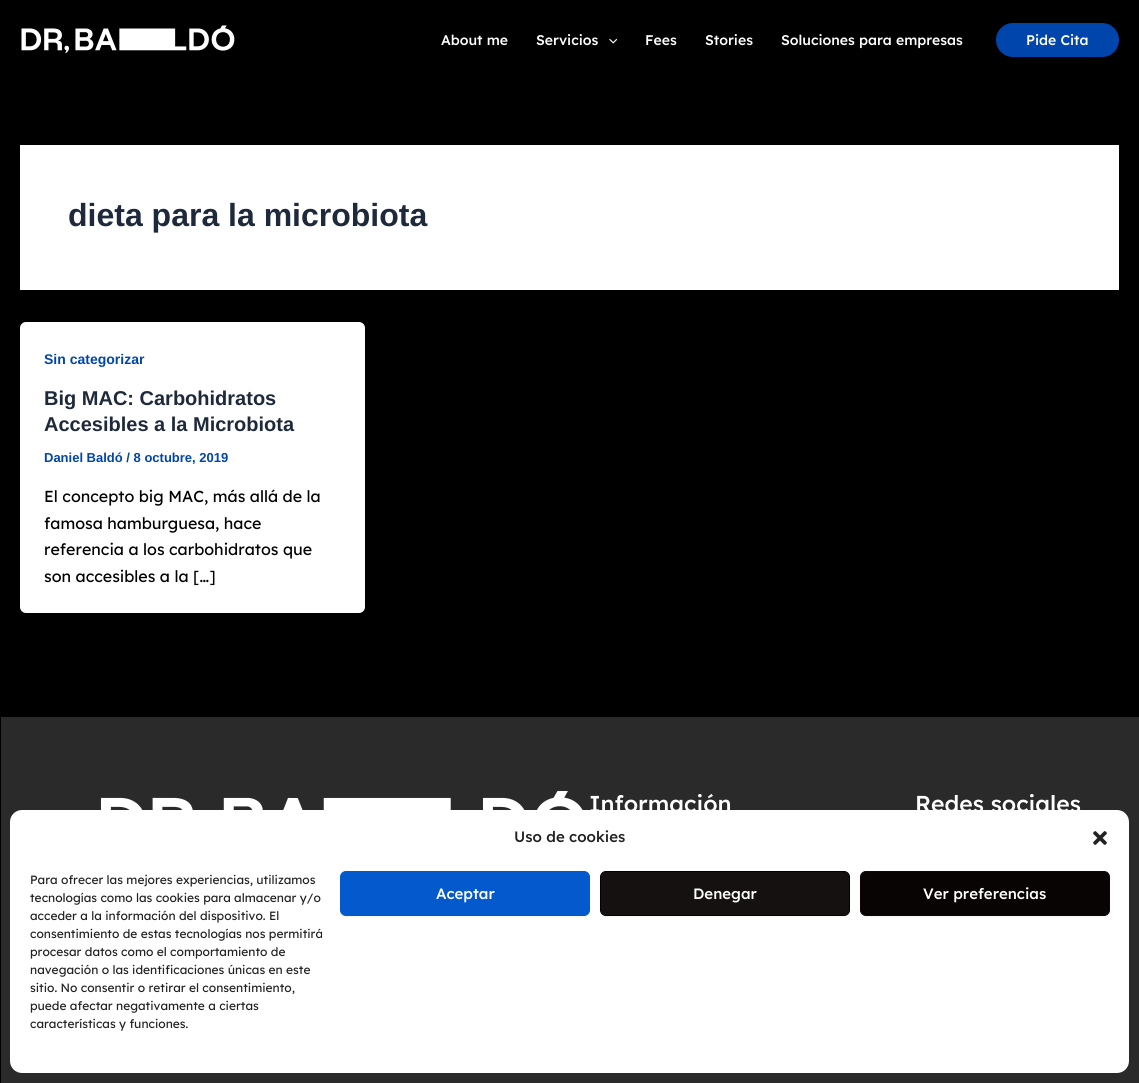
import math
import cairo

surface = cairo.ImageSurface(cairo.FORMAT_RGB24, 1139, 1083)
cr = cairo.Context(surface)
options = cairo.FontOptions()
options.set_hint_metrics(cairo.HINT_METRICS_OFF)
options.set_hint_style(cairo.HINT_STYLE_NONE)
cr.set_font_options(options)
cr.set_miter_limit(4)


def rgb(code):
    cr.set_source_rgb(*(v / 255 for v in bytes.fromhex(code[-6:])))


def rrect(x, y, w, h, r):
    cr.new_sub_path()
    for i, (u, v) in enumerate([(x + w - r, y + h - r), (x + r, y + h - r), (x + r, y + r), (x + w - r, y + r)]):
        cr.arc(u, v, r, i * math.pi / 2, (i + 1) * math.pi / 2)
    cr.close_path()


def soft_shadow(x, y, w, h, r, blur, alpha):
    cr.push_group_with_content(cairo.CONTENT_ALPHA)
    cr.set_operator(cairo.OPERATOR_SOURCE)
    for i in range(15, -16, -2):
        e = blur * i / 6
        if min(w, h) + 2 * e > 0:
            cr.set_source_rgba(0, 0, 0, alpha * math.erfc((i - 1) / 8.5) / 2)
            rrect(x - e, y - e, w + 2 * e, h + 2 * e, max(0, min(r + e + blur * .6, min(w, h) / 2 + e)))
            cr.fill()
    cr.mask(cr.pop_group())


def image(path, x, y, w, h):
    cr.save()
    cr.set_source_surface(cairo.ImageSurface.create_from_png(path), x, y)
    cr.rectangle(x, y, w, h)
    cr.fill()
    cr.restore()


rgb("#000000")
cr.paint()
image("img/1.png", 21, 25, 214, 29)
image("img/2.png", 609, 38, 8, 6)
rgb("#0045ac")
rrect(996, 23, 123, 34, 17)
cr.fill()
rgb("#ffffff")
cr.rectangle(20, 145, 1099, 145)
cr.fill()
rrect(20, 322, 345, 291, 6)
cr.fill()
rgb("#2a2a2a")
cr.rectangle(1, 717, 1138, 366)
cr.fill()
image("img/3.png", 100, 791, 483, 19)
rgb("#ffffff")
rrect(10, 810, 1119, 263, 12)
cr.fill()
image("img/4.png", 1093, 831, 14, 14)
rgb("#000000")
soft_shadow(340, 872, 250, 45, 6, 1, 0.05)
rgb("#045acc")
rrect(340.5, 871.5, 249, 44, 5.5)
cr.fill_preserve()
cr.set_line_width(1)
cr.stroke()
rgb("#000000")
soft_shadow(600, 872, 250, 45, 6, 1, 0.05)
rgb("#151111")
rrect(600.5, 871.5, 249, 44, 5.5)
cr.fill_preserve()
rgb("#030202")
cr.stroke()
rgb("#000000")
soft_shadow(860, 872, 250, 45, 6, 1, 0.05)
rgb("#090404")
rrect(860.5, 871.5, 249, 44, 5.5)
cr.fill_preserve()
rgb("#0f0606")
cr.stroke()
cr.select_font_face("Lexend Deca Medium")
cr.set_font_size(14)
rgb("#ffffff")
for x, y, s in [
    (441, 45, "About me"),
    (536, 45, "Servicios"),
    (645, 45, "Fees"),
    (705, 45, "Stories"),
    (781, 45, "Soluciones para empresas"),
    (1026, 45, "Pide Cita"),
]:
    cr.move_to(x, y)
    cr.show_text(s)
cr.select_font_face("Liberation Sans", cairo.FONT_SLANT_NORMAL, cairo.FONT_WEIGHT_BOLD)
cr.set_font_size(32)
rgb("#1e293b")
cr.move_to(68, 226)
cr.show_text("dieta para la microbiota")
cr.set_font_size(14)
rgb("#0045ac")
cr.move_to(44, 364)
cr.show_text("Sin categorizar")
cr.set_font_size(20)
rgb("#1e293b")
cr.move_to(44, 405)
cr.show_text("Big MAC: Carbohidratos")
cr.move_to(44, 431)
cr.show_text("Accesibles a la Microbiota")
cr.set_font_size(13)
rgb("#0045ac")
cr.move_to(44, 462)
cr.show_text("Daniel Baldó / 8 octubre, 2019")
cr.select_font_face("Lexend Deca")
cr.set_font_size(16)
rgb("#000000")
for x, y, s in [
    (44, 502, "El concepto big MAC, más allá de la"),
    (44, 529, "famosa hamburguesa, hace"),
    (44, 555, "referencia a los carbohidratos que"),
    (44, 582, "son accesibles a la […]"),
]:
    cr.move_to(x, y)
    cr.show_text(s)
cr.select_font_face("Lexend Deca Medium")
cr.set_font_size(23)
rgb("#ffffff")
cr.move_to(589, 812)
cr.show_text("Información")
cr.move_to(915, 812)
cr.show_text("Redes sociales")
cr.set_font_size(15)
rgb("#222222")
cr.move_to(514, 842)
cr.show_text("Uso de cookies")
cr.select_font_face("Lexend Deca")
cr.set_font_size(12)
for x, y, s in [
    (30, 884, "Para ofrecer las mejores experiencias, utilizamos"),
    (30, 902, "tecnologías como las cookies para almacenar y/o"),
    (30, 920, "acceder a la información del dispositivo. El"),
    (30, 938, "consentimiento de estas tecnologías nos permitirá"),
    (30, 956, "procesar datos como el comportamiento de"),
    (30, 974, "navegación o las identificaciones únicas en este"),
    (30, 992, "sitio. No consentir o retirar el consentimiento,"),
    (30, 1010, "puede afectar negativamente a ciertas"),
    (30, 1028, "características y funciones."),
]:
    cr.move_to(x, y)
    cr.show_text(s)
cr.select_font_face("Lexend Deca Medium")
cr.set_font_size(15)
rgb("#ffffff")
for x, y, s in [
    (436, 899, "Aceptar"),
    (693, 899, "Denegar"),
    (923, 899, "Ver preferencias"),
]:
    cr.move_to(x, y)
    cr.show_text(s)
surface.write_to_png("page.png")
